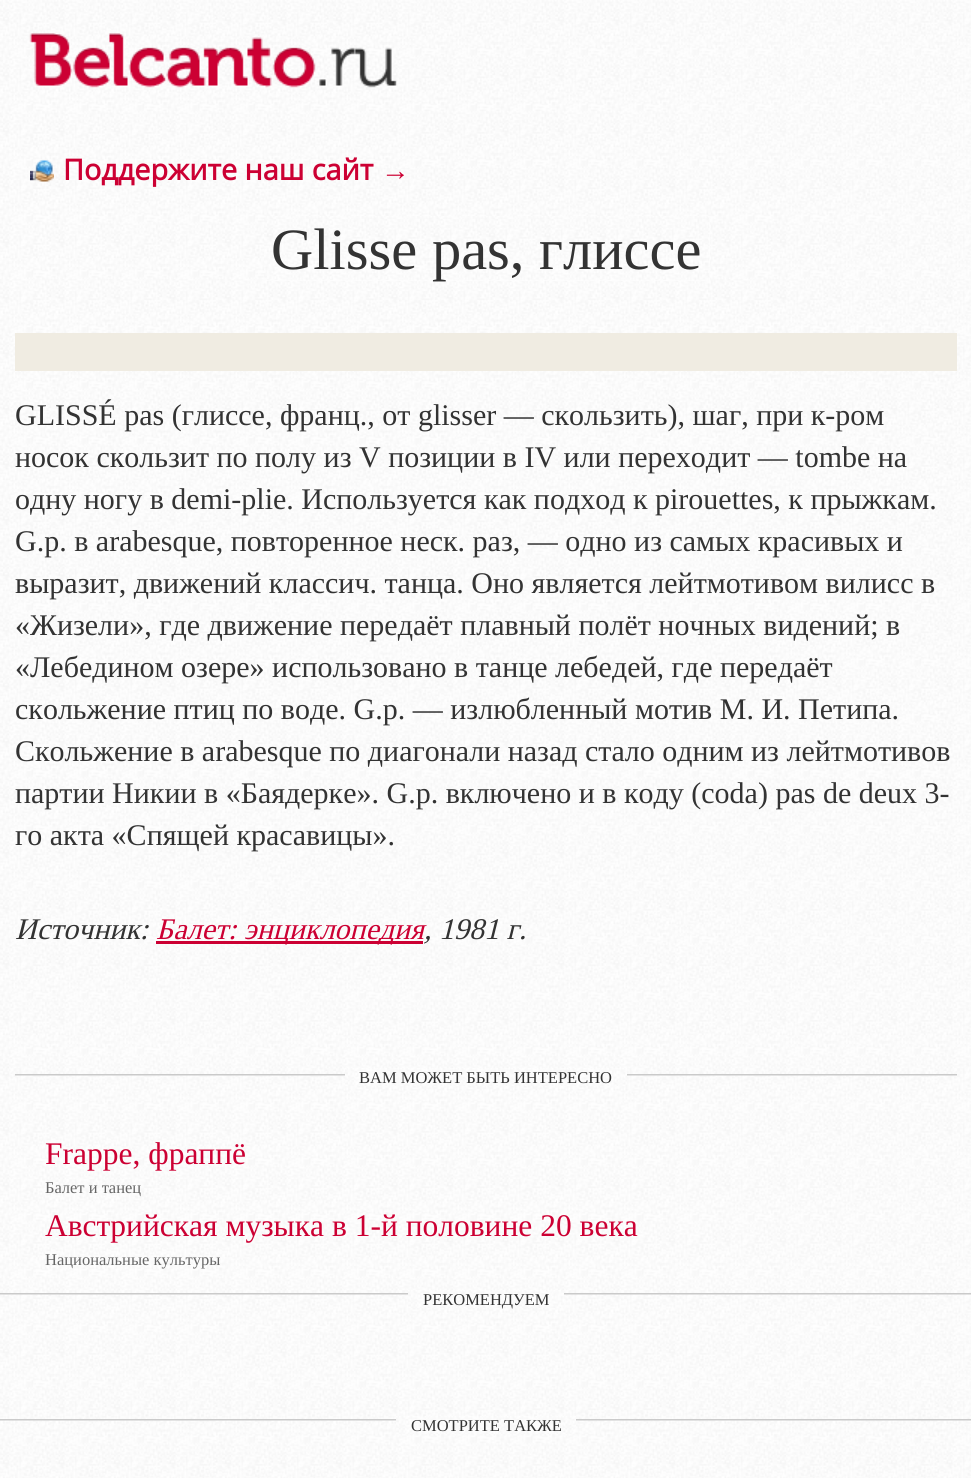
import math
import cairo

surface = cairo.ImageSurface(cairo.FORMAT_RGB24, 971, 1478)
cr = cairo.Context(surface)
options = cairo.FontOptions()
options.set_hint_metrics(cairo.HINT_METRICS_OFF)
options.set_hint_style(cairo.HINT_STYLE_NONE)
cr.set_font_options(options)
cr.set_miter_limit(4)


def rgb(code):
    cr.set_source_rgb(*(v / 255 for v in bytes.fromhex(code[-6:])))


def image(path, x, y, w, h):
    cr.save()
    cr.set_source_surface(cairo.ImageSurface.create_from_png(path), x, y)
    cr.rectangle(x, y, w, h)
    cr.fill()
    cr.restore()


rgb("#ffffff")
cr.paint()
image("img/1.png", 0, 0, 971, 1478)
image("img/2.png", 29, 33, 368, 55)
image("img/3.png", 30, 160, 24, 22)
rgb("#ffffff")
cr.rectangle(264, 216, 446, 65)
cr.fill()
image("img/4.png", 264, 216, 446, 65)
rgb("#f0ece2")
cr.rectangle(15, 333, 942, 38)
cr.fill()
rgb("#cc0033")
cr.rectangle(156, 941, 267, 3)
cr.fill()
image("img/5.png", 15, 1074, 942, 2)
image("img/6.png", 345, 1068, 282, 18)
image("img/7.png", 0, 1293, 971, 2)
image("img/8.png", 408, 1290, 156, 18)
image("img/9.png", 0, 1419, 971, 2)
image("img/10.png", 396, 1416, 180, 18)
cr.select_font_face("Open Sans", cairo.FONT_SLANT_NORMAL, cairo.FONT_WEIGHT_BOLD)
cr.set_font_size(28.75)
cr.move_to(63, 180)
cr.show_text("Поддержите наш сайт")
cr.select_font_face("Liberation Sans", cairo.FONT_SLANT_NORMAL, cairo.FONT_WEIGHT_BOLD)
cr.move_to(381, 180)
cr.show_text("→")
cr.select_font_face("Tinos")
cr.set_font_size(58.5)
rgb("#333333")
cr.move_to(271, 269)
cr.show_text("Glisse pas, глиссе")
cr.set_font_size(30)
for x, y, s in [
    (15, 425, "GLISSÉ pas (глиссе, франц., от glisser — скользить), шаг, при к-ром"),
    (15, 467, "носок скользит по полу из V позиции в IV или переходит — tombe на"),
    (15, 509, "одну ногу в demi-plie. Используется как подход к pirouettes, к прыжкам."),
    (15, 551, "G.p. в arabesque, повторенное неск. раз, — одно из самых красивых и"),
    (15, 593, "выразит, движений классич. танца. Оно является лейтмотивом вилисс в"),
    (15, 635, "«Жизели», где движение передаёт плавный полёт ночных видений; в"),
    (15, 677, "«Лебедином озере» использовано в танце лебедей, где передаёт"),
    (15, 719, "скольжение птиц по воде. G.p. — излюбленный мотив М. И. Петипа."),
    (15, 761, "Скольжение в arabesque по диагонали назад стало одним из лейтмотивов"),
    (15, 803, "партии Никии в «Баядерке». G.p. включено и в коду (coda) pas de deux 3-"),
    (15, 845, "го акта «Спящей красавицы»."),
]:
    cr.move_to(x, y)
    cr.show_text(s)
cr.select_font_face("Tinos", cairo.FONT_SLANT_ITALIC)
cr.move_to(15, 939)
cr.show_text("Источник:")
rgb("#cc0033")
cr.move_to(156, 939)
cr.show_text("Балет: энциклопедия")
rgb("#333333")
cr.move_to(424, 939)
cr.show_text(", 1981 г.")
cr.select_font_face("Tinos")
cr.set_font_size(16.5)
cr.move_to(359, 1083)
cr.show_text("ВАМ МОЖЕТ БЫТЬ ИНТЕРЕСНО")
cr.set_font_size(31.5)
rgb("#cc0033")
cr.move_to(45, 1164)
cr.show_text("Frappe, фраппё")
cr.set_font_size(16.5)
rgb("#666666")
cr.move_to(45, 1193)
cr.show_text("Балет и танец")
cr.set_font_size(31.5)
rgb("#cc0033")
cr.move_to(45, 1236)
cr.show_text("Австрийская музыка в 1-й половине 20 века")
cr.set_font_size(16.5)
rgb("#666666")
cr.move_to(45, 1265)
cr.show_text("Национальные культуры")
rgb("#333333")
cr.move_to(423, 1305)
cr.show_text("РЕКОМЕНДУЕМ")
cr.move_to(411, 1431)
cr.show_text("СМОТРИТЕ ТАКЖЕ")
surface.write_to_png("page.png")
